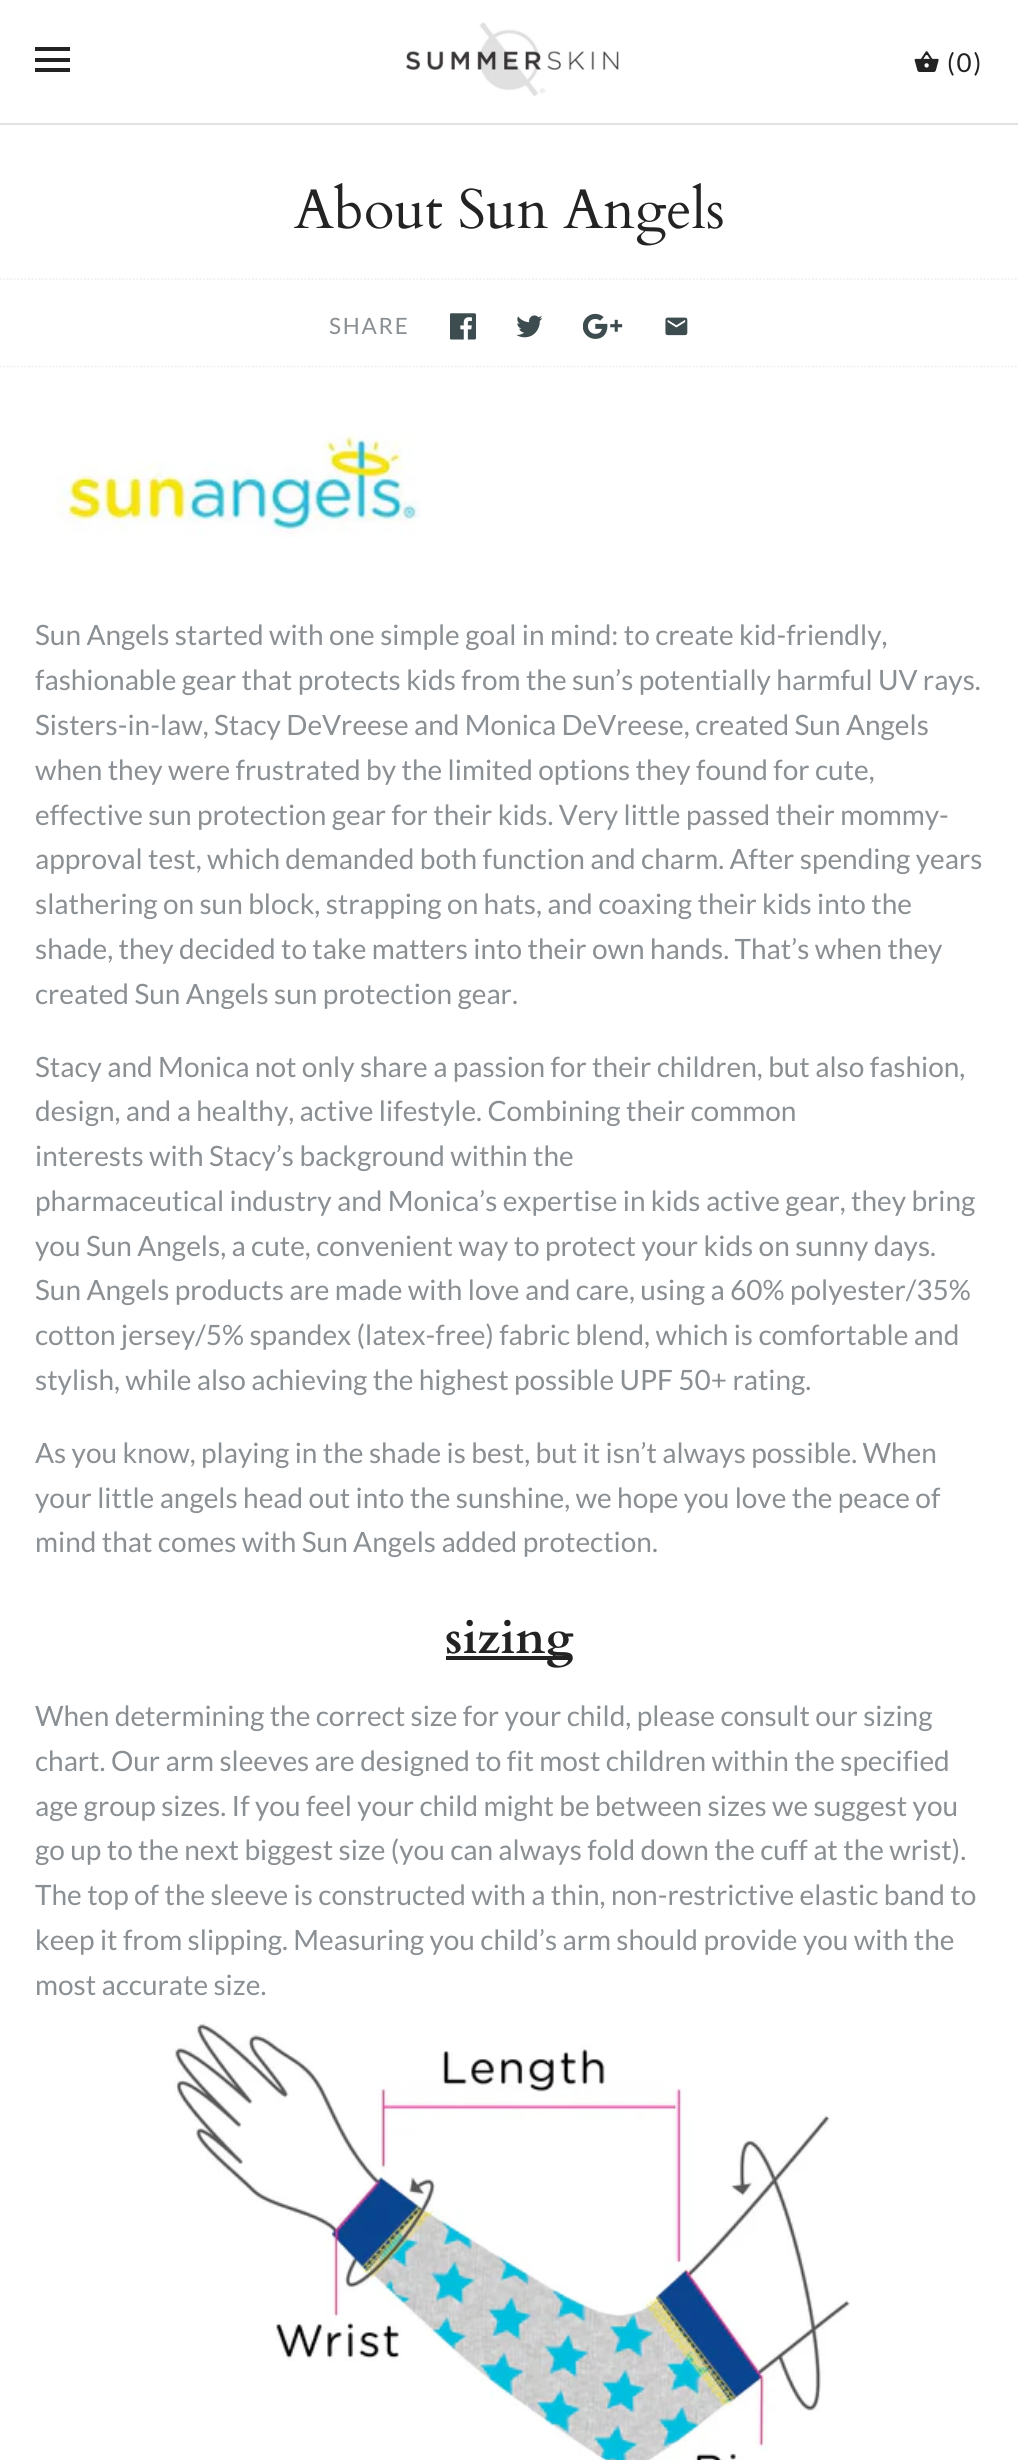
import math
import cairo

surface = cairo.ImageSurface(cairo.FORMAT_RGB24, 1018, 2460)
cr = cairo.Context(surface)
options = cairo.FontOptions()
options.set_hint_metrics(cairo.HINT_METRICS_OFF)
options.set_hint_style(cairo.HINT_STYLE_NONE)
cr.set_font_options(options)
cr.set_miter_limit(4)


def rgb(code):
    cr.set_source_rgb(*(v / 255 for v in bytes.fromhex(code[-6:])))


def tracked(x, y, s, letter, word):
    cr.move_to(x, y)
    for ch in s:
        cr.show_text(ch)
        cr.rel_move_to(letter + word * (ch == ' '), 0)


def image(path, x, y, w, h):
    cr.save()
    cr.set_source_surface(cairo.ImageSurface.create_from_png(path), x, y)
    cr.rectangle(x, y, w, h)
    cr.fill()
    cr.restore()


rgb("#ffffff")
cr.paint()
for x, y, w, h, color in [
    (0, 123, 1018, 2, "#e2e2e2"),
    (35, 47, 35, 4, "#232323"),
    (35, 58, 35, 4, "#232323"),
    (35, 68, 35, 4, "#232323"),
]:
    rgb(color)
    cr.rectangle(x, y, w, h)
    cr.fill()
image("img/1.png", 406, 22, 213, 75)
image("img/2.png", 914, 51, 25, 21)
cr.new_path()
cr.move_to(0, 279)
cr.line_to(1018.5, 279)
rgb("#f0f0f0")
cr.set_line_width(1.8)
cr.set_dash([1.75, 1.75])
cr.stroke()
cr.new_path()
cr.move_to(0, 366.5)
cr.line_to(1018.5, 366.5)
cr.stroke()
image("img/3.png", 450, 313, 26, 27)
image("img/4.png", 516, 315, 27, 23)
image("img/5.png", 583, 313, 40, 26)
image("img/6.png", 665, 317, 23, 19)
image("img/7.png", 53, 433, 368, 105)
rgb("#232323")
cr.rectangle(446, 1656, 126, 4)
cr.fill()
image("img/8.png", 174, 2022, 676, 438)
cr.select_font_face("Lato")
cr.set_font_size(26)
tracked(947, 72, "(0)", 1.75, 0)
cr.select_font_face("Cardo")
cr.set_font_size(56)
cr.move_to(294, 228)
cr.show_text("About Sun Angels")
cr.select_font_face("Lato")
cr.set_font_size(22.5)
rgb("#8a8f93")
tracked(329, 334, "SHARE", 1.75, 0)
cr.set_font_size(28)
for x, y, s in [
    (35, 645, "Sun Angels started with one simple goal in mind: to create kid-friendly,"),
    (35, 690, "fashionable gear that protects kids from the sun’s potentially harmful UV rays."),
    (35, 735, "Sisters-in-law, Stacy DeVreese and Monica DeVreese, created Sun Angels"),
    (35, 780, "when they were frustrated by the limited options they found for cute,"),
    (35, 825, "effective sun protection gear for their kids. Very little passed their mommy-"),
    (35, 869, "approval test, which demanded both function and charm. After spending years"),
    (35, 914, "slathering on sun block, strapping on hats, and coaxing their kids into the"),
    (35, 959, "shade, they decided to take matters into their own hands. That’s when they"),
    (35, 1004, "created Sun Angels sun protection gear."),
    (35, 1077, "Stacy and Monica not only share a passion for their children, but also fashion,"),
    (35, 1121, "design, and a healthy, active lifestyle. Combining their common"),
    (35, 1166, "interests with Stacy’s background within the"),
    (35, 1211, "pharmaceutical industry and Monica’s expertise in kids active gear, they bring"),
    (35, 1256, "you Sun Angels, a cute, convenient way to protect your kids on sunny days."),
    (35, 1300, "Sun Angels products are made with love and care, using a 60% polyester/35%"),
    (35, 1345, "cotton jersey/5% spandex (latex-free) fabric blend, which is comfortable and"),
    (35, 1390, "stylish, while also achieving the highest possible UPF 50+ rating."),
    (35, 1463, "As you know, playing in the shade is best, but it isn’t always possible. When"),
    (35, 1508, "your little angels head out into the sunshine, we hope you love the peace of"),
    (35, 1552, "mind that comes with Sun Angels added protection."),
]:
    cr.move_to(x, y)
    cr.show_text(s)
cr.select_font_face("Cardo", cairo.FONT_SLANT_NORMAL, cairo.FONT_WEIGHT_BOLD)
cr.set_font_size(47)
rgb("#232323")
cr.move_to(445, 1653)
cr.show_text("sizing")
cr.select_font_face("Lato")
cr.set_font_size(28)
rgb("#8a8f93")
for x, y, s in [
    (35, 1726, "When determining the correct size for your child, please consult our sizing"),
    (35, 1771, "chart. Our arm sleeves are designed to fit most children within the specified"),
    (35, 1816, "age group sizes. If you feel your child might be between sizes we suggest you"),
    (35, 1860, "go up to the next biggest size (you can always fold down the cuff at the wrist)."),
    (35, 1905, "The top of the sleeve is constructed with a thin, non-restrictive elastic band to"),
    (35, 1950, "keep it from slipping. Measuring you child’s arm should provide you with the"),
    (35, 1995, "most accurate size."),
]:
    cr.move_to(x, y)
    cr.show_text(s)
surface.write_to_png("page.png")
